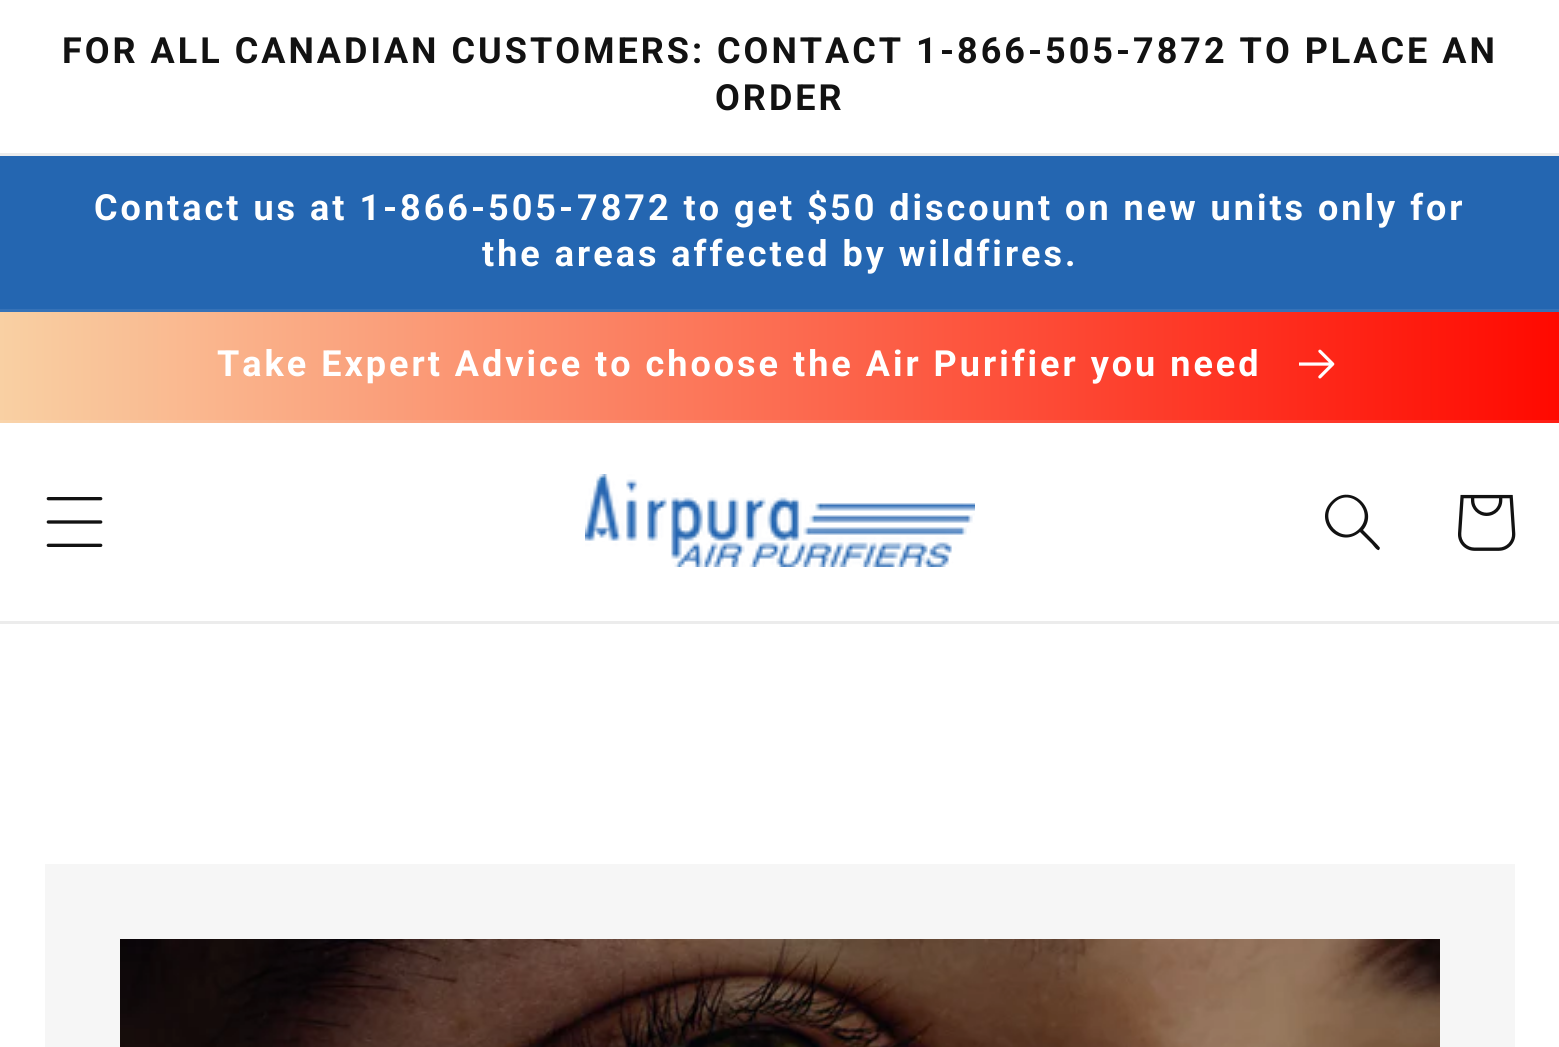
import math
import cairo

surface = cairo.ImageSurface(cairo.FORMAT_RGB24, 1559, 1047)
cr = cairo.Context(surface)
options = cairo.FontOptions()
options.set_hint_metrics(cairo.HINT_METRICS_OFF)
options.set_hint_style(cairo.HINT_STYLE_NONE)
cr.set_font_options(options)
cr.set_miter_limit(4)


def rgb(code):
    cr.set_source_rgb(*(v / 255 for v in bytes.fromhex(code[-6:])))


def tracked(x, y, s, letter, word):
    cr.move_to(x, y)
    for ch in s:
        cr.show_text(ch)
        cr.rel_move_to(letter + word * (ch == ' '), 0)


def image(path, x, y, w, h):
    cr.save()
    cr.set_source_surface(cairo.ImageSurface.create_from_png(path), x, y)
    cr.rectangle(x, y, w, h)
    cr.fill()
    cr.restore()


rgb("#ffffff")
cr.paint()
for x, y, w, h, color in [
    (0, 153, 1559, 3, "#ececec"),
    (0, 156, 1559, 153, "#2466b1"),
    (0, 309, 1559, 3, "#3672b7"),
]:
    rgb(color)
    cr.rectangle(x, y, w, h)
    cr.fill()
gradient = cairo.LinearGradient(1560, 523, 0, 524)
gradient.add_color_stop_rgba(0, 1, 0.035, 0, 1)
gradient.add_color_stop_rgba(1, 0.976, 0.816, 0.639, 1)
cr.set_source(gradient)
cr.rectangle(0, 312, 1559, 108)
cr.fill()
gradient = cairo.LinearGradient(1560, 523, 0, 524)
gradient.add_color_stop_rgba(0, 1, 0.114, 0.078, 1)
gradient.add_color_stop_rgba(1, 0.976, 0.831, 0.667, 1)
cr.set_source(gradient)
cr.rectangle(0, 420, 1559, 3)
cr.fill()
image("img/1.png", 1299, 349, 36, 30)
rgb("#ececec")
cr.rectangle(0, 621, 1559, 3)
cr.fill()
image("img/2.png", 46, 497, 57, 50)
image("img/3.png", 585, 474, 390, 93)
rgb("#121212")
cr.set_fill_rule(cairo.FILL_RULE_EVEN_ODD)
cr.new_path()
cr.move_to(1359, 529)
cr.curve_to(1342, 546, 1317, 520, 1334, 503)
cr.curve_to(1351, 486, 1376, 512, 1359, 529)
cr.close_path()
cr.move_to(1360, 532)
cr.curve_to(1339, 550, 1312, 520, 1332, 501)
cr.curve_to(1351, 482, 1380, 510, 1363, 530)
cr.curve_to(1365, 532, 1380, 547, 1380, 548)
cr.line_to(1379, 550)
cr.curve_to(1377, 551, 1373, 545, 1372, 544)
cr.close_path()
cr.fill()
image("img/4.png", 1458, 494, 58, 57)
rgb("#f6f6f6")
cr.rectangle(45, 864, 1470, 183)
cr.fill()
image("img/5.png", 120, 939, 1320, 108)
cr.select_font_face("Roboto", cairo.FONT_SLANT_NORMAL, cairo.FONT_WEIGHT_BOLD)
cr.set_font_size(36)
rgb("#121212")
tracked(62, 63, "FOR ALL CANADIAN CUSTOMERS", 3, 0)
cr.select_font_face("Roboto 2", cairo.FONT_SLANT_NORMAL, cairo.FONT_WEIGHT_BOLD)
tracked(692, 63, ":", 3, 0)
cr.select_font_face("Roboto", cairo.FONT_SLANT_NORMAL, cairo.FONT_WEIGHT_BOLD)
tracked(717, 63, "CONTACT 1", 3, 0)
cr.select_font_face("Roboto 2", cairo.FONT_SLANT_NORMAL, cairo.FONT_WEIGHT_BOLD)
tracked(940, 63, "-", 3, 0)
cr.select_font_face("Roboto", cairo.FONT_SLANT_NORMAL, cairo.FONT_WEIGHT_BOLD)
tracked(957, 63, "866", 3, 0)
cr.select_font_face("Roboto 2", cairo.FONT_SLANT_NORMAL, cairo.FONT_WEIGHT_BOLD)
tracked(1028, 63, "-", 3, 0)
cr.select_font_face("Roboto", cairo.FONT_SLANT_NORMAL, cairo.FONT_WEIGHT_BOLD)
tracked(1045, 63, "505", 3, 0)
cr.select_font_face("Roboto 2", cairo.FONT_SLANT_NORMAL, cairo.FONT_WEIGHT_BOLD)
tracked(1116, 63, "-", 3, 0)
cr.select_font_face("Roboto", cairo.FONT_SLANT_NORMAL, cairo.FONT_WEIGHT_BOLD)
tracked(1133, 63, "7872 TO PLACE AN", 3, 0)
tracked(715, 110, "ORDER", 3, 0)
rgb("#ffffff")
tracked(94, 220, "Contact us at 1", 3, 0)
cr.select_font_face("Roboto 2", cairo.FONT_SLANT_NORMAL, cairo.FONT_WEIGHT_BOLD)
tracked(383, 220, "-", 3, 0)
cr.select_font_face("Roboto", cairo.FONT_SLANT_NORMAL, cairo.FONT_WEIGHT_BOLD)
tracked(400, 220, "866", 3, 0)
cr.select_font_face("Roboto 2", cairo.FONT_SLANT_NORMAL, cairo.FONT_WEIGHT_BOLD)
tracked(471, 220, "-", 3, 0)
cr.select_font_face("Roboto", cairo.FONT_SLANT_NORMAL, cairo.FONT_WEIGHT_BOLD)
tracked(488, 220, "505", 3, 0)
cr.select_font_face("Roboto 2", cairo.FONT_SLANT_NORMAL, cairo.FONT_WEIGHT_BOLD)
tracked(559, 220, "-", 3, 0)
cr.select_font_face("Roboto", cairo.FONT_SLANT_NORMAL, cairo.FONT_WEIGHT_BOLD)
tracked(577, 220, "7872 to get", 3, 0)
cr.select_font_face("Roboto 2", cairo.FONT_SLANT_NORMAL, cairo.FONT_WEIGHT_BOLD)
tracked(807, 220, "$", 3, 0)
cr.select_font_face("Roboto", cairo.FONT_SLANT_NORMAL, cairo.FONT_WEIGHT_BOLD)
tracked(830, 220, "50 discount on new units only for", 3, 0)
tracked(482, 266, "the areas affected by wildfires", 3, 0)
cr.select_font_face("Roboto 2", cairo.FONT_SLANT_NORMAL, cairo.FONT_WEIGHT_BOLD)
tracked(1065, 266, ".", 3, 0)
cr.select_font_face("Roboto", cairo.FONT_SLANT_NORMAL, cairo.FONT_WEIGHT_BOLD)
tracked(217, 376, "Take Expert Advice to choose the Air Purifier you need", 3, 0)
surface.write_to_png("page.png")
